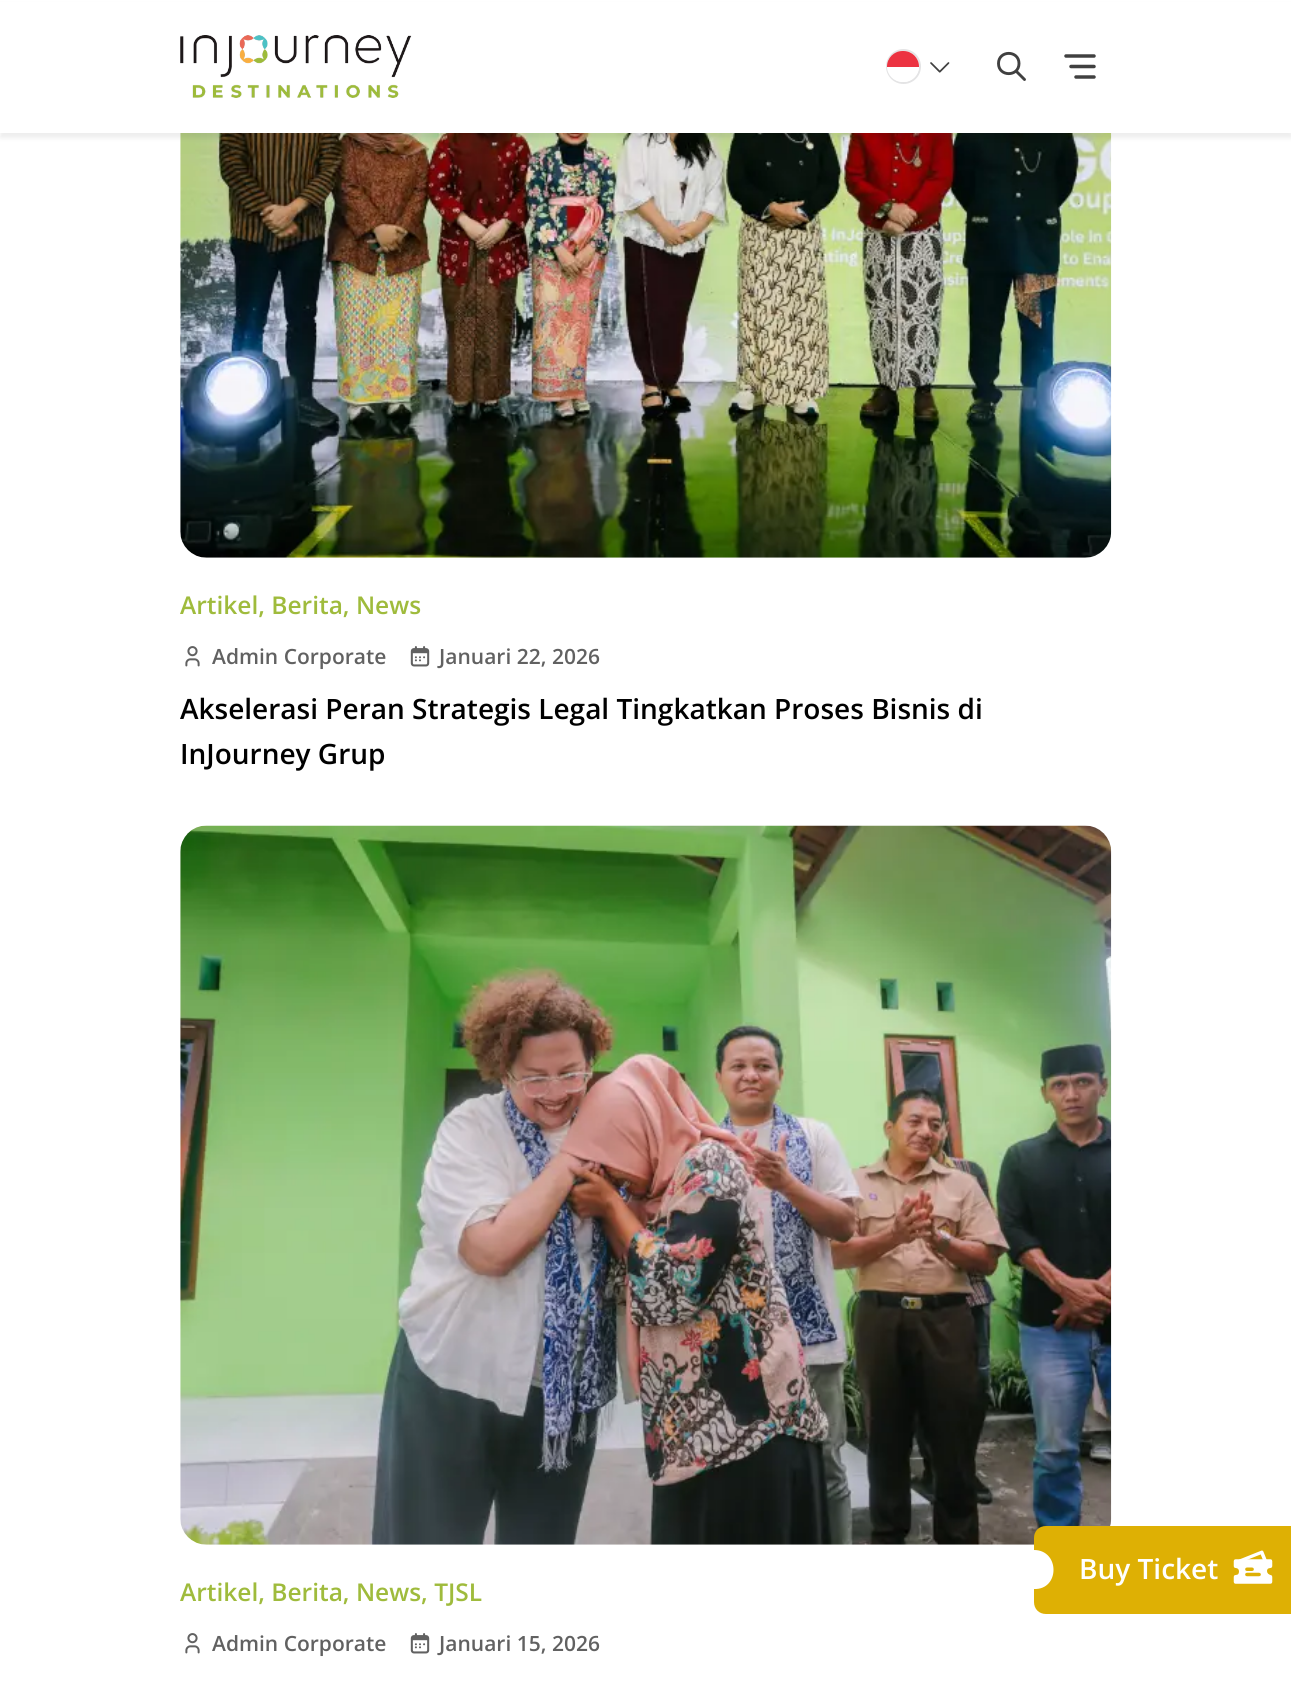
import math
import cairo

surface = cairo.ImageSurface(cairo.FORMAT_RGB24, 1291, 1682)
cr = cairo.Context(surface)
options = cairo.FontOptions()
options.set_hint_metrics(cairo.HINT_METRICS_OFF)
options.set_hint_style(cairo.HINT_STYLE_NONE)
cr.set_font_options(options)
cr.set_miter_limit(4)


def rgb(code):
    cr.set_source_rgb(*(v / 255 for v in bytes.fromhex(code[-6:])))


def rrect(x, y, w, h, r):
    cr.new_sub_path()
    for i, (u, v) in enumerate([(x + w - r, y + h - r), (x + r, y + h - r), (x + r, y + r), (x + w - r, y + r)]):
        cr.arc(u, v, r, i * math.pi / 2, (i + 1) * math.pi / 2)
    cr.close_path()


def soft_shadow(x, y, w, h, r, blur, alpha):
    cr.push_group_with_content(cairo.CONTENT_ALPHA)
    cr.set_operator(cairo.OPERATOR_SOURCE)
    for i in range(15, -16, -2):
        e = blur * i / 6
        if min(w, h) + 2 * e > 0:
            cr.set_source_rgba(0, 0, 0, alpha * math.erfc((i - 1) / 8.5) / 2)
            rrect(x - e, y - e, w + 2 * e, h + 2 * e, max(0, min(r + e + blur * .6, min(w, h) / 2 + e)))
            cr.fill()
    cr.mask(cr.pop_group())


def image(path, x, y, w, h):
    cr.save()
    cr.set_source_surface(cairo.ImageSurface.create_from_png(path), x, y)
    cr.rectangle(x, y, w, h)
    cr.fill()
    cr.restore()


rgb("#ffffff")
cr.paint()
image("img/3.png", 180, 133, 932, 425)
rgb("#000000")
soft_shadow(0, 5, 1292, 133, 0, 2.5, 0.07)
rgb("#ffffff")
cr.rectangle(0, 2, 1291, 131)
cr.fill()
image("img/1.png", 180, 35, 232, 63)
cr.arc(903.5, 66.5, 16.5, 0, 2 * math.pi)
rgb("#e4e4e5")
cr.stroke()
cr.save()
rrect(887, 51, 32, 31, 15.5)
cr.clip()
rgb("#ec3341")
cr.new_path()
cr.move_to(902.5, 51)
cr.line_to(903.5, 51)
cr.curve_to(912, 51, 919, 58, 919, 66.5)
cr.line_to(919, 67)
cr.line_to(887, 67)
cr.line_to(887, 66.5)
cr.curve_to(887, 58, 894, 51, 902.5, 51)
cr.close_path()
cr.fill()
rgb("#ffffff")
cr.rectangle(887, 67, 32, 15)
cr.fill()
cr.restore()
image("img/2.png", 930, 62, 20, 11)
cr.new_path()
cr.move_to(998.5, 63.5)
cr.curve_to(998.5, 77, 1019, 77, 1019, 63.5)
cr.curve_to(1019, 50, 998.5, 50, 998.5, 63.5)
cr.move_to(1024.5, 79.5)
cr.line_to(1016, 71)
rgb("#404040")
cr.set_line_width(2.9)
cr.set_line_cap(cairo.LINE_CAP_ROUND)
cr.set_line_join(cairo.LINE_JOIN_ROUND)
cr.stroke()
cr.new_path()
cr.move_to(1066, 56)
cr.line_to(1094, 56)
cr.move_to(1071, 66.5)
cr.line_to(1094, 66.5)
cr.move_to(1076, 77)
cr.line_to(1094, 77)
cr.set_line_width(3.5)
cr.stroke()
image("img/4.png", 185, 646, 15, 21)
image("img/5.png", 410, 646, 20, 21)
image("img/6.png", 180, 825, 932, 720)
image("img/4.png", 185, 1633, 15, 21)
image("img/5.png", 410, 1633, 20, 21)
rgb("#deb004")
cr.new_path()
cr.move_to(1034, 1550)
cr.curve_to(1060, 1550, 1060, 1590, 1034, 1589)
cr.line_to(1034, 1602)
cr.curve_to(1034, 1609, 1039, 1614, 1046, 1614)
cr.line_to(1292, 1614)
cr.line_to(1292, 1526)
cr.line_to(1046, 1526)
cr.curve_to(1039, 1526, 1034, 1531, 1034, 1538)
cr.close_path()
cr.fill()
image("img/7.png", 1233, 1550, 40, 34)
cr.select_font_face("Open Sans SemiBold")
cr.set_font_size(24.5)
rgb("#9fbb3c")
cr.move_to(180, 614)
cr.show_text("Artikel, Berita, News")
cr.set_font_size(21)
rgb("#616161")
cr.move_to(212, 664)
cr.show_text("Admin Corporate")
cr.move_to(439, 664)
cr.show_text("Januari 22, 2026")
cr.set_font_size(28)
rgb("#000000")
cr.move_to(180, 719)
cr.show_text("Akselerasi Peran Strategis Legal Tingkatkan Proses Bisnis di")
cr.move_to(180, 764)
cr.show_text("InJourney Grup")
cr.set_font_size(24.5)
rgb("#9fbb3c")
cr.move_to(180, 1601)
cr.show_text("Artikel, Berita, News, TJSL")
cr.set_font_size(21)
rgb("#616161")
cr.move_to(212, 1651)
cr.show_text("Admin Corporate")
cr.move_to(439, 1651)
cr.show_text("Januari 15, 2026")
cr.set_font_size(28)
rgb("#ffffff")
cr.move_to(1079, 1579)
cr.show_text("Buy Ticket")
surface.write_to_png("page.png")
